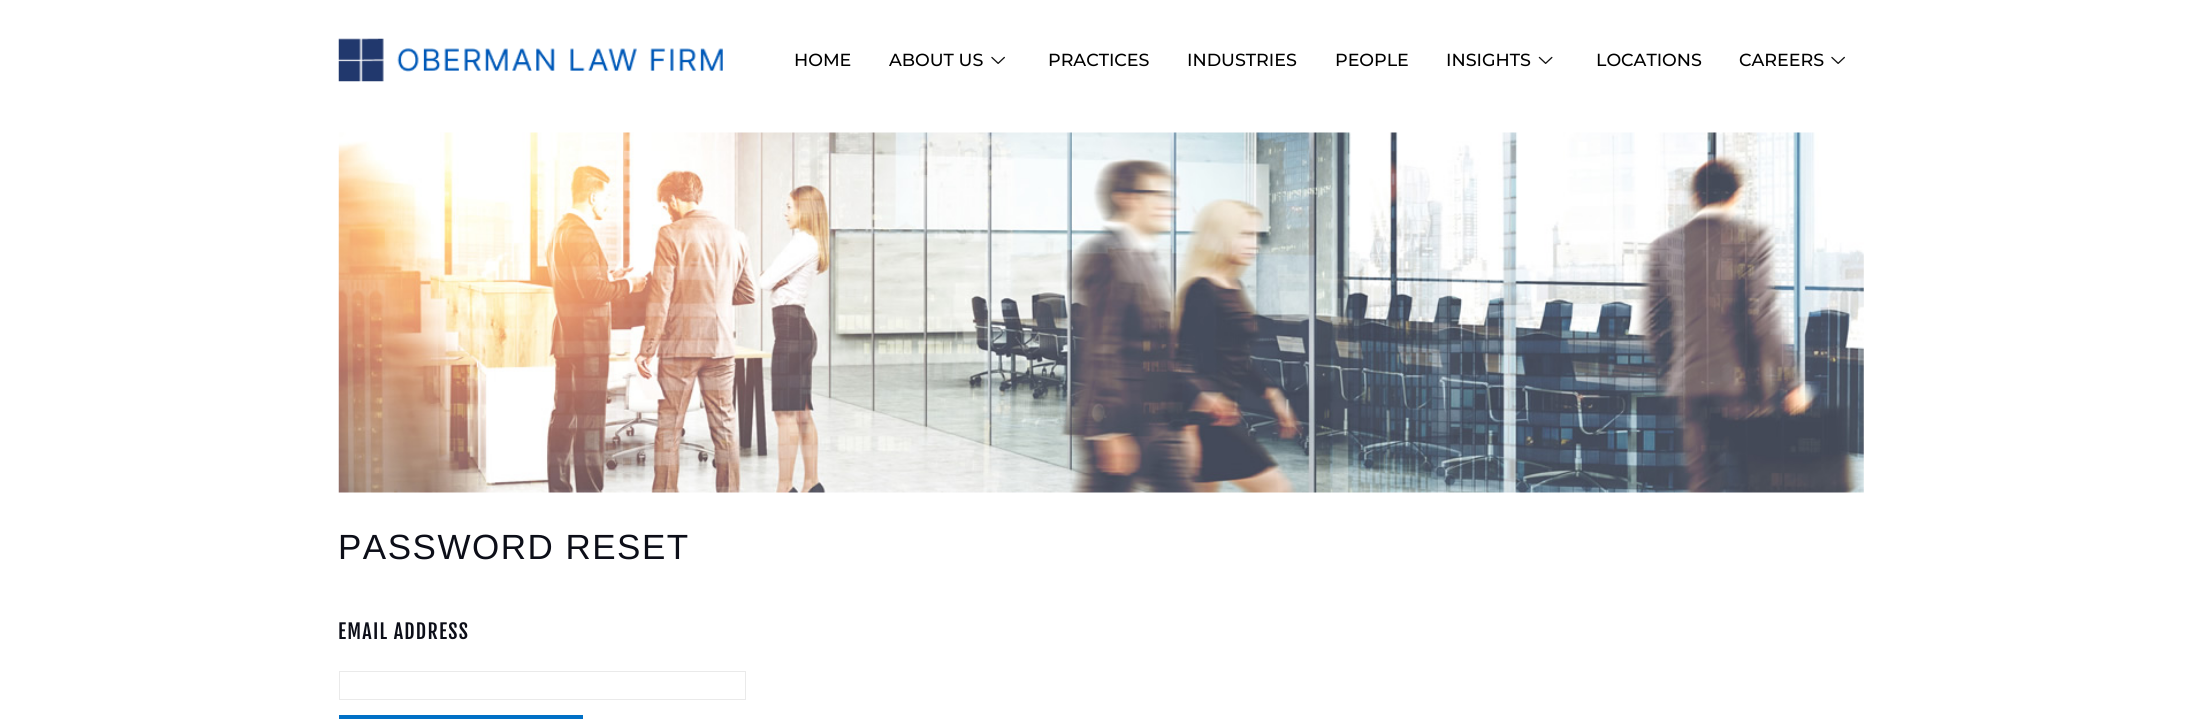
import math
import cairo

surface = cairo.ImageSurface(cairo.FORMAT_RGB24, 2201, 719)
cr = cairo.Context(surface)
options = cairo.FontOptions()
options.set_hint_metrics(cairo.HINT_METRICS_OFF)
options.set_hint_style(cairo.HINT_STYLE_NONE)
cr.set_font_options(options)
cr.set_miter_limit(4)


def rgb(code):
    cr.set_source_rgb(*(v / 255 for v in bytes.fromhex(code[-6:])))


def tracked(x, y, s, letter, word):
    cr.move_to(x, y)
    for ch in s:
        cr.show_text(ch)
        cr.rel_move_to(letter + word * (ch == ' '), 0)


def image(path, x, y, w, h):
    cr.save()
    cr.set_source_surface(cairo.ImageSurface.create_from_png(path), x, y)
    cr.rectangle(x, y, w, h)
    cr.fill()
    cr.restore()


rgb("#ffffff")
cr.paint()
image("img/1.png", 338, 38, 385, 44)
image("img/2.png", 991, 56, 14, 8)
image("img/3.png", 1538, 56, 15, 8)
image("img/2.png", 1831, 56, 14, 8)
image("img/4.png", 338, 132, 1526, 361)
cr.rectangle(339.5, 671.5, 406, 28)
rgb("#eaeaea")
cr.set_line_width(1)
cr.stroke()
rgb("#0070c6")
cr.rectangle(339, 715, 244, 4)
cr.fill()
cr.select_font_face("Montserrat Medium")
cr.set_font_size(17.5)
rgb("#000000")
for x, y, s in [
    (794, 66, "HOME"),
    (889, 66, "ABOUT US"),
    (1048, 66, "PRACTICES"),
    (1187, 66, "INDUSTRIES"),
    (1335, 66, "PEOPLE"),
    (1446, 66, "INSIGHTS"),
    (1596, 66, "LOCATIONS"),
    (1739, 66, "CAREERS"),
]:
    cr.move_to(x, y)
    cr.show_text(s)
cr.select_font_face("Liberation Sans")
cr.set_font_size(35)
rgb("#0c0e18")
tracked(338, 559, "PASSWORD RESET", 1.5, 0)
cr.select_font_face("Fjalla One")
cr.set_font_size(20)
tracked(338, 639, "EMAIL ADDRESS", 1.25, 0)
surface.write_to_png("page.png")
